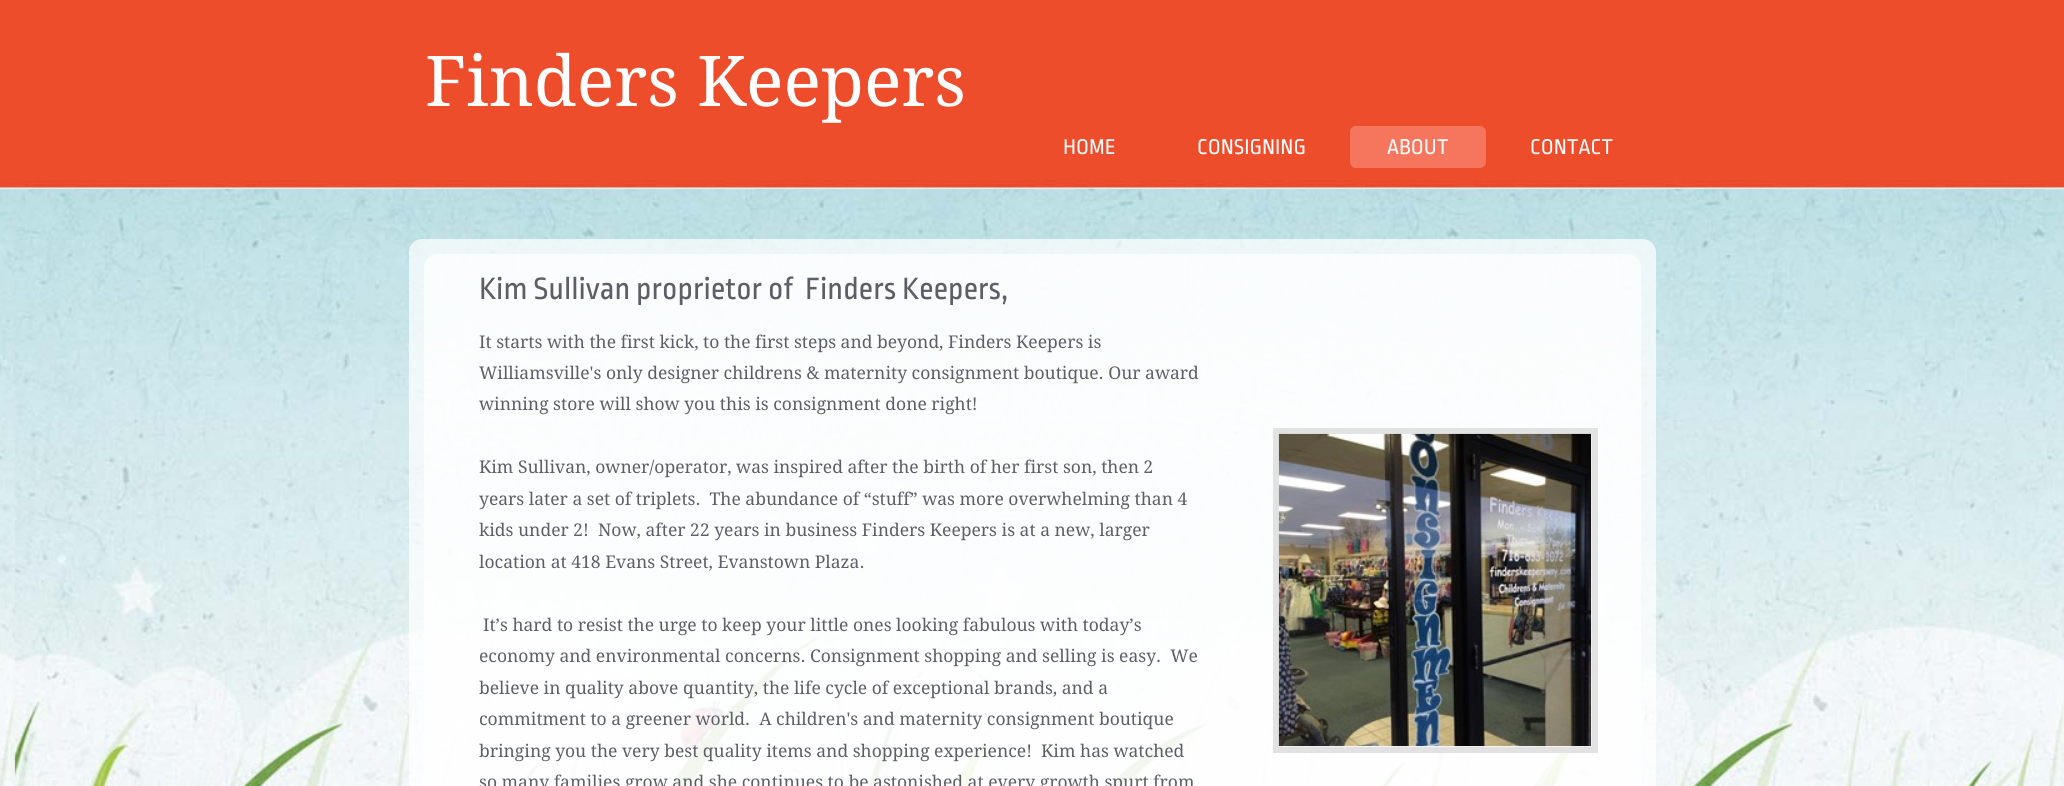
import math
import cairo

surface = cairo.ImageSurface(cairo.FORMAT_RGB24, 2064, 786)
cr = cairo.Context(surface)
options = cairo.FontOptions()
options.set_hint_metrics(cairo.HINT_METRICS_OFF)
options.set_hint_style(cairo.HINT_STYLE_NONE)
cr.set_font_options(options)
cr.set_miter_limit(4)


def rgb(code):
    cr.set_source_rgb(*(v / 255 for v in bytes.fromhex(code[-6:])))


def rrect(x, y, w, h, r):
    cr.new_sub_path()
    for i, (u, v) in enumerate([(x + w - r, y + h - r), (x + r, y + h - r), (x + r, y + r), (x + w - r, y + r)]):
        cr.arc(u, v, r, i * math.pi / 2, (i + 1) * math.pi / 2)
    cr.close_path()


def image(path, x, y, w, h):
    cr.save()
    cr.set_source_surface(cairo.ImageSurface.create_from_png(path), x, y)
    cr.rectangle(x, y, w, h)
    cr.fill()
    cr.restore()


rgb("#ffffff")
cr.paint()
image("img/1.png", 0, 0, 2064, 786)
rgb("#f6765d")
rrect(1350, 126, 136, 42, 6)
cr.fill()
cr.set_source_rgba(1, 1, 1, 0.7)
cr.new_path()
cr.move_to(422, 239)
cr.line_to(1643, 239)
cr.curve_to(1650, 239, 1656, 245, 1656, 252)
cr.line_to(1656, 786)
cr.line_to(409, 786)
cr.line_to(409, 252)
cr.curve_to(409, 245, 415, 239, 422, 239)
cr.close_path()
cr.fill()
cr.new_path()
cr.move_to(437, 254)
cr.line_to(1628, 254)
cr.curve_to(1635, 254, 1641, 260, 1641, 267)
cr.line_to(1641, 786)
cr.line_to(424, 786)
cr.line_to(424, 267)
cr.curve_to(424, 260, 430, 254, 437, 254)
cr.close_path()
cr.fill()
cr.rectangle(1276, 431, 319, 319)
rgb("#e2e2e2")
cr.set_line_width(6)
cr.stroke()
image("img/2.png", 1278, 433, 314, 314)
cr.select_font_face("Droid Serif")
cr.set_font_size(70)
rgb("#ffffff")
cr.move_to(425, 106)
cr.show_text("Finders Keepers")
cr.select_font_face("Ropa Sans")
cr.set_font_size(22.5)
for x, y, s in [
    (1063, 154, "HOME"),
    (1197, 154, "CONSIGNING"),
    (1387, 154, "ABOUT"),
    (1530, 154, "CONTACT"),
]:
    cr.move_to(x, y)
    cr.show_text(s)
cr.set_font_size(32.5)
rgb("#5d5f67")
cr.move_to(479, 299)
cr.show_text("Kim Sullivan proprietor of  Finders Keepers,")
cr.select_font_face("Droid Serif")
cr.set_font_size(17.5)
for x, y, s in [
    (479, 348, "It starts with the first kick, to the first steps and beyond, Finders Keepers is"),
    (479, 379, "Williamsville's only designer childrens & maternity consignment boutique. Our award"),
    (479, 410, "winning store will show you this is consignment done right!"),
    (479, 473, "Kim Sullivan, owner/operator, was inspired after the birth of her first son, then 2"),
    (479, 505, "years later a set of triplets.  The abundance of “stuff” was more overwhelming than 4"),
    (479, 536, "kids under 2!  Now, after 22 years in business Finders Keepers is at a new, larger"),
    (479, 568, "location at 418 Evans Street, Evanstown Plaza."),
    (483, 631, "It’s hard to resist the urge to keep your little ones looking fabulous with today’s"),
    (479, 662, "economy and environmental concerns. Consignment shopping and selling is easy.  We"),
    (479, 694, "believe in quality above quantity, the life cycle of exceptional brands, and a"),
    (479, 725, "commitment to a greener world.  A children's and maternity consignment boutique"),
    (479, 757, "bringing you the very best quality items and shopping experience!  Kim has watched"),
    (479, 788, "so many families grow and she continues to be astonished at every growth spurt from"),
]:
    cr.move_to(x, y)
    cr.show_text(s)
surface.write_to_png("page.png")
